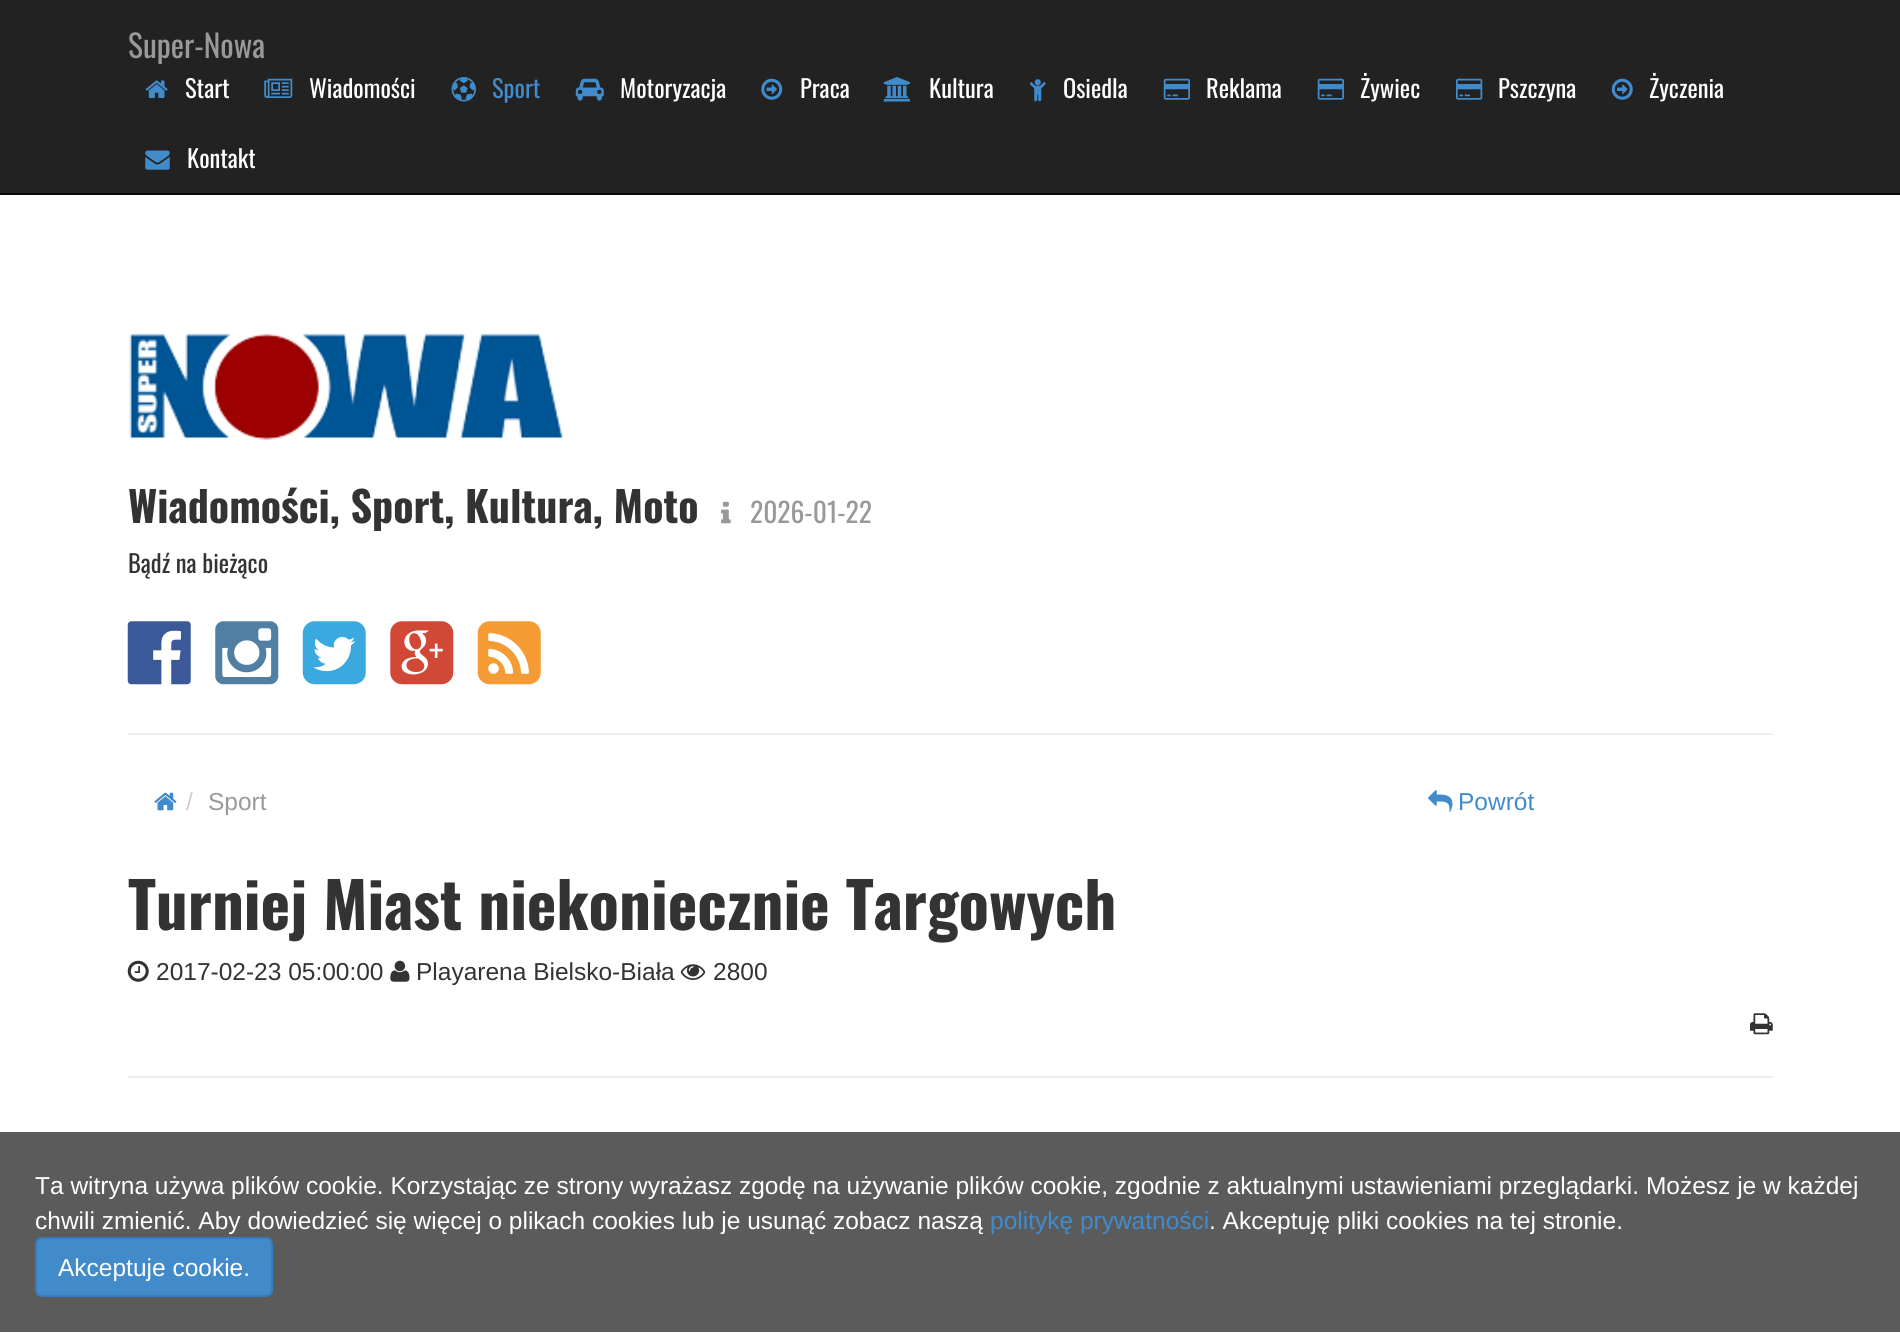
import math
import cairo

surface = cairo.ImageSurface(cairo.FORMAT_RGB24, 1900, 1333)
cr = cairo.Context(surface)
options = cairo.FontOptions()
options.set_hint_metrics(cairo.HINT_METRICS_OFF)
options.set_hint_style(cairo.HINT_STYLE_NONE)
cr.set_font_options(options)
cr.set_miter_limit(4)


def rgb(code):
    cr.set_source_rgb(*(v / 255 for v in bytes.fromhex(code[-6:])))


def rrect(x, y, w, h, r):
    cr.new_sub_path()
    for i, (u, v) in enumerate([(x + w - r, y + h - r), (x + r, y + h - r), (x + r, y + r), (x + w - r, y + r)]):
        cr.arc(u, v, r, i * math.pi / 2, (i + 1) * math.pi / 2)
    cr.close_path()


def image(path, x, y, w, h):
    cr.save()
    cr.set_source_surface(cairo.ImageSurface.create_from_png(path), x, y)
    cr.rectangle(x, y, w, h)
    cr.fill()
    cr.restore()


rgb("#ffffff")
cr.paint()
rgb("#222222")
cr.rectangle(0, 0, 1900, 193)
cr.fill()
rgb("#080808")
cr.rectangle(0, 193, 1900, 2)
cr.fill()
image("img/1.png", 145, 80, 23, 18)
image("img/2.png", 264, 78, 29, 20)
image("img/3.png", 451, 77, 25, 25)
image("img/4.png", 575, 78, 29, 23)
image("img/5.png", 761, 78, 22, 22)
image("img/6.png", 883, 77, 27, 25)
image("img/7.png", 1029, 79, 17, 23)
image("img/8.png", 1163, 78, 27, 22)
image("img/8.png", 1317, 78, 27, 22)
image("img/9.png", 1456, 78, 27, 22)
image("img/10.png", 1611, 78, 22, 22)
image("img/11.png", 145, 150, 25, 20)
image("img/12.png", 129, 333, 435, 107)
image("img/13.png", 721, 501, 10, 23)
image("img/14.png", 127, 621, 64, 64)
image("img/15.png", 215, 621, 64, 64)
image("img/16.png", 302, 621, 64, 64)
image("img/17.png", 390, 621, 64, 64)
image("img/18.png", 477, 621, 64, 64)
rgb("#eeeeee")
cr.rectangle(128, 733, 1645, 2)
cr.fill()
image("img/19.png", 154, 792, 23, 19)
image("img/20.png", 1428, 790, 25, 22)
image("img/21.png", 127, 960, 22, 22)
image("img/22.png", 390, 960, 20, 22)
image("img/23.png", 680, 964, 26, 16)
image("img/24.png", 1750, 1013, 23, 22)
cr.rectangle(128, 1076, 1645, 2)
cr.fill()
cr.set_source_rgba(0.196, 0.196, 0.196, 0.8)
cr.rectangle(0, 1132, 1900, 200)
cr.fill()
rgb("#428bca")
rrect(36, 1238, 236, 58, 6)
cr.fill_preserve()
rgb("#357ebd")
cr.stroke()
cr.select_font_face("Oswald")
cr.set_font_size(31.5)
rgb("#999999")
cr.move_to(128, 58)
cr.show_text("Super-Nowa")
cr.set_font_size(24.5)
rgb("#ffffff")
cr.move_to(185, 98)
cr.show_text("Start")
cr.move_to(309, 98)
cr.show_text("Wiadomości")
rgb("#428bca")
cr.move_to(492, 98)
cr.show_text("Sport")
rgb("#ffffff")
for x, y, s in [
    (620, 98, "Motoryzacja"),
    (800, 98, "Praca"),
    (929, 98, "Kultura"),
    (1063, 98, "Osiedla"),
    (1206, 98, "Reklama"),
    (1360, 98, "Żywiec"),
    (1498, 98, "Pszczyna"),
    (1649, 98, "Życzenia"),
    (187, 168, "Kontakt"),
]:
    cr.move_to(x, y)
    cr.show_text(s)
cr.select_font_face("Oswald", cairo.FONT_SLANT_NORMAL, cairo.FONT_WEIGHT_BOLD)
cr.set_font_size(42)
rgb("#333333")
cr.move_to(128, 523)
cr.show_text("Wiadomości, Sport, Kultura, Moto")
cr.select_font_face("Oswald")
cr.set_font_size(27.5)
rgb("#999999")
cr.move_to(750, 523)
cr.show_text("2026-01-22")
cr.set_font_size(24.5)
rgb("#333333")
cr.move_to(128, 573)
cr.show_text("Bądź na bieżąco")
cr.select_font_face("Liberation Sans")
rgb("#cccccc")
cr.move_to(186, 810)
cr.show_text("/")
rgb("#999999")
cr.move_to(208, 810)
cr.show_text("Sport")
rgb("#428bca")
cr.move_to(1458, 810)
cr.show_text("Powrót")
cr.select_font_face("Oswald", cairo.FONT_SLANT_NORMAL, cairo.FONT_WEIGHT_BOLD)
cr.set_font_size(63)
rgb("#333333")
cr.move_to(128, 930)
cr.show_text("Turniej Miast niekoniecznie Targowych")
cr.select_font_face("Liberation Sans")
cr.set_font_size(24.5)
for x, y, s in [
    (156, 980, "2017-02-23 05:00:00"),
    (416, 980, "Playarena Bielsko-Biała"),
    (713, 980, "2800"),
]:
    cr.move_to(x, y)
    cr.show_text(s)
rgb("#ffffff")
cr.move_to(35, 1194)
cr.show_text("Ta witryna używa plików cookie. Korzystając ze strony wyrażasz zgodę na używanie plików cookie, zgodnie z aktualnymi ustawieniami przeglądarki. Możesz je w każdej")
cr.move_to(35, 1229)
cr.show_text("chwili zmienić. Aby dowiedzieć się więcej o plikach cookies lub je usunąć zobacz naszą")
rgb("#428bca")
cr.move_to(990, 1229)
cr.show_text("politykę prywatności")
rgb("#ffffff")
cr.move_to(1209, 1229)
cr.show_text(". Akceptuję pliki cookies na tej stronie.")
cr.move_to(58, 1276)
cr.show_text("Akceptuje cookie.")
surface.write_to_png("page.png")
